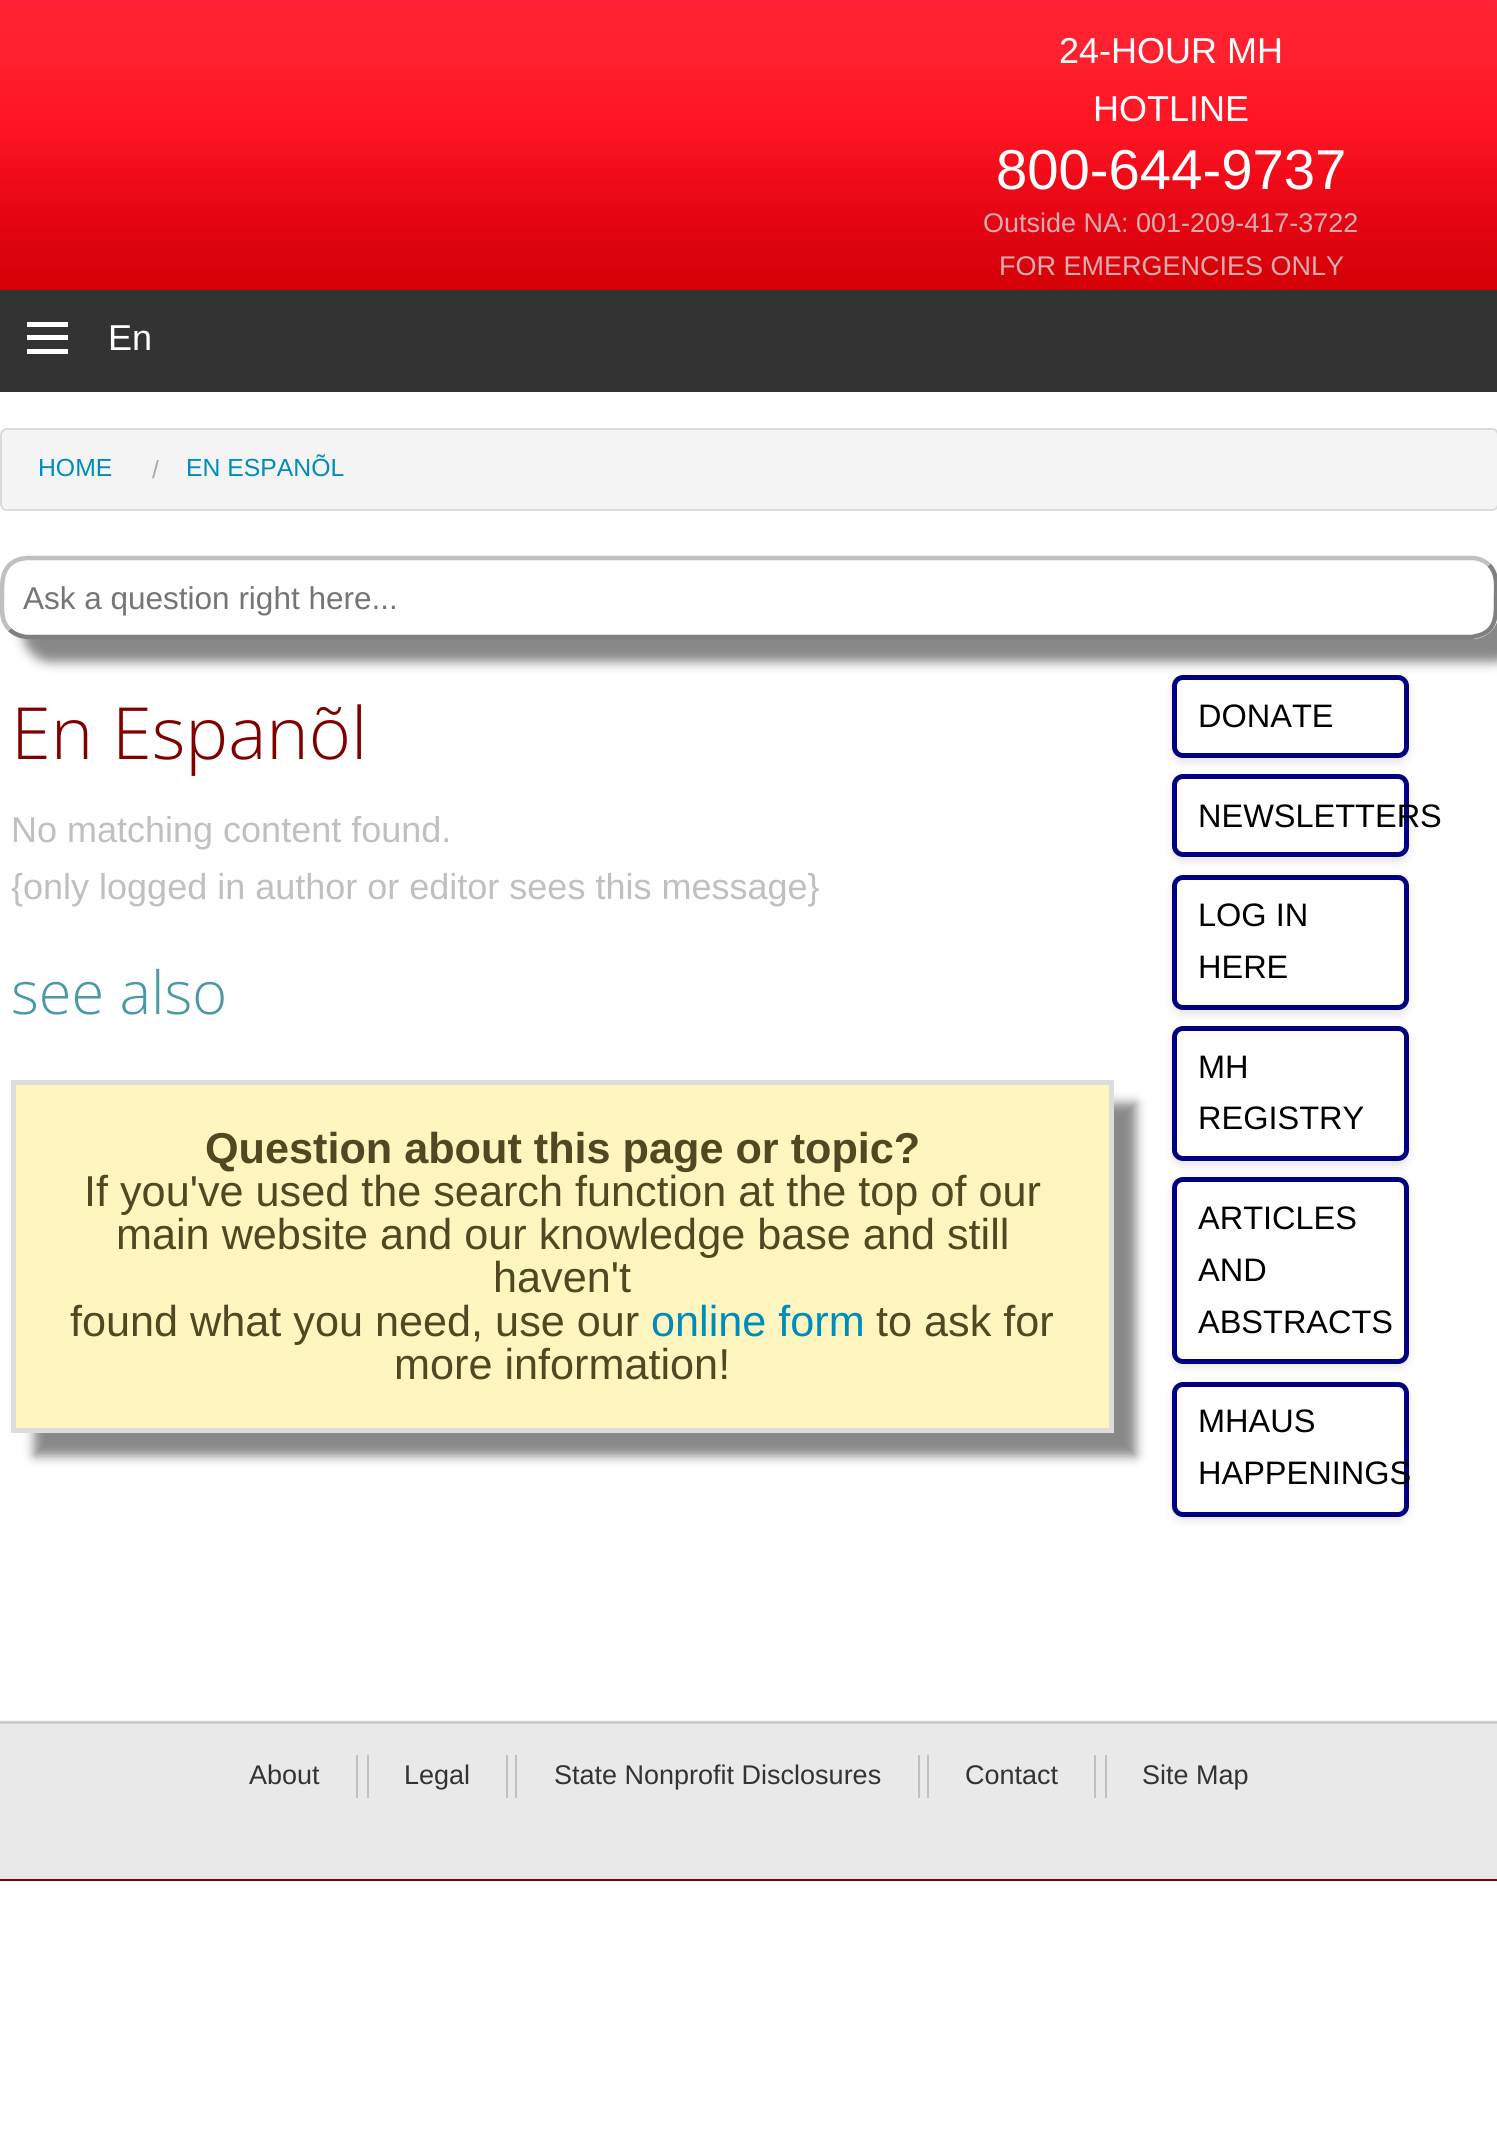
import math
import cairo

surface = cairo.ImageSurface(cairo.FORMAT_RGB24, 1497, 2155)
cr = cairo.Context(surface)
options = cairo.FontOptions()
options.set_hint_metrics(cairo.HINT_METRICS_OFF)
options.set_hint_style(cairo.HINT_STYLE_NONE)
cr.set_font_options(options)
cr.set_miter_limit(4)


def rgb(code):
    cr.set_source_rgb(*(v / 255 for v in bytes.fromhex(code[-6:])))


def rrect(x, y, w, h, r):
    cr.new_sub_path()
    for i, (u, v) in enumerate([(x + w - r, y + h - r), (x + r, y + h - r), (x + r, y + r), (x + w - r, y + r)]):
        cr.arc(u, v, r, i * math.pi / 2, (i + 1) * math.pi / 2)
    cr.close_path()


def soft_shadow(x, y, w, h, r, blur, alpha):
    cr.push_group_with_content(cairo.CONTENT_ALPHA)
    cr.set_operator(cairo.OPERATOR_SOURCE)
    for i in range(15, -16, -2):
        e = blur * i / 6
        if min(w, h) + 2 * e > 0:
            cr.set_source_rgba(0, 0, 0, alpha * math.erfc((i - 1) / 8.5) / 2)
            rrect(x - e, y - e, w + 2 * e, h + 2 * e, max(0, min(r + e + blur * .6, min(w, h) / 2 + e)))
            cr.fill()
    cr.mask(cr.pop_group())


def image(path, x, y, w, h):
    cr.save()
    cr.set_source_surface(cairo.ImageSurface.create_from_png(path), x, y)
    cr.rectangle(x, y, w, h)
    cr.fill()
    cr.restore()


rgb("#ffffff")
cr.paint()
image("img/1.png", 0, 0, 1497, 290)
for x, y, w, h, color in [
    (0, 290, 1497, 102, "#333333"),
    (27, 349, 41, 5, "#ffffff"),
    (27, 335, 41, 5, "#ffffff"),
    (27, 322, 41, 5, "#ffffff"),
]:
    rgb(color)
    cr.rectangle(x, y, w, h)
    cr.fill()
rgb("#f4f4f4")
rrect(1, 429, 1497, 81, 6)
cr.fill_preserve()
rgb("#dadada")
cr.stroke()
rgb("#888888")
soft_shadow(23, 578, 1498, 84, 27, 5.5, 1)
rgb("#ffffff")
rrect(0, 556, 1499, 83, 27)
cr.fill()
cr.new_path()
cr.move_to(1489, 565)
cr.curve_to(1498, 574, 1496, 586, 1496, 597.5)
cr.curve_to(1496, 613.5, 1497.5, 630, 1478.5, 635.5)
cr.line_to(1471.5, 637)
cr.line_to(27, 637)
cr.curve_to(20.5, 636.5, 14, 634, 9.5, 629.5)
rgb("#808080")
cr.set_line_width(4.5)
cr.stroke()
cr.new_path()
cr.move_to(9.5, 629.5)
cr.curve_to(0.5, 620.5, 2, 609, 2, 597.5)
cr.curve_to(2, 581.5, 1, 565, 20, 559)
cr.line_to(27, 558)
cr.line_to(1471.5, 558)
cr.curve_to(1478, 558, 1484.5, 560.5, 1489, 565)
rgb("#c0c0c0")
cr.stroke()
rgb("#888888")
soft_shadow(34, 1103, 1102, 353, 0, 5.5, 1)
rgb("#fff6bf")
cr.rectangle(13.5, 1082.5, 1098, 348)
cr.fill_preserve()
rgb("#dddddd")
cr.set_line_width(5)
cr.stroke()
rgb("#000000")
soft_shadow(1172, 680, 237, 83, 11, 4.5, 0.1)
rgb("#ffffff")
rrect(1174.5, 677.5, 232, 78, 8.5)
cr.fill_preserve()
rgb("#000080")
cr.stroke()
rgb("#000000")
soft_shadow(1172, 779, 237, 83, 11, 4.5, 0.1)
rgb("#ffffff")
rrect(1174.5, 776.5, 232, 78, 8.5)
cr.fill_preserve()
rgb("#000080")
cr.stroke()
rgb("#000000")
soft_shadow(1172, 880, 237, 135, 11, 4.5, 0.1)
rgb("#ffffff")
rrect(1174.5, 877.5, 232, 130, 8.5)
cr.fill_preserve()
rgb("#000080")
cr.stroke()
rgb("#000000")
soft_shadow(1172, 1031, 237, 135, 11, 4.5, 0.1)
rgb("#ffffff")
rrect(1174.5, 1028.5, 232, 130, 8.5)
cr.fill_preserve()
rgb("#000080")
cr.stroke()
rgb("#000000")
soft_shadow(1172, 1181, 237, 187, 11, 4.5, 0.1)
rgb("#ffffff")
rrect(1174.5, 1179.5, 232, 182, 8.5)
cr.fill_preserve()
rgb("#000080")
cr.stroke()
rgb("#000000")
soft_shadow(1172, 1386, 237, 135, 11, 4.5, 0.1)
rgb("#ffffff")
rrect(1174.5, 1384.5, 232, 130, 8.5)
cr.fill_preserve()
rgb("#000080")
cr.stroke()
image("img/2.png", 0, 1720, 1497, 159)
for x, y, w, h, color in [
    (0, 1879, 1497, 2, "#800000"),
    (356, 1755, 2, 43, "#c0c0c0"),
    (506, 1755, 2, 43, "#c0c0c0"),
    (367, 1755, 2, 43, "#c0c0c0"),
    (918, 1755, 2, 43, "#c0c0c0"),
    (515, 1755, 2, 43, "#c0c0c0"),
    (1094, 1755, 2, 43, "#c0c0c0"),
    (927, 1755, 2, 43, "#c0c0c0"),
    (1105, 1755, 2, 43, "#c0c0c0"),
]:
    rgb(color)
    cr.rectangle(x, y, w, h)
    cr.fill()
cr.select_font_face("Liberation Sans")
cr.set_font_size(36)
rgb("#ffffff")
cr.move_to(1059, 63)
cr.show_text("24-HOUR MH")
cr.move_to(1093, 121)
cr.show_text("HOTLINE")
cr.set_font_size(56.25)
cr.move_to(996, 189)
cr.show_text("800-644-9737")
cr.set_font_size(27)
rgb("#dbadaf")
cr.move_to(983, 232)
cr.show_text("Outside NA: 001-209-417-3722")
cr.move_to(999, 275)
cr.show_text("FOR EMERGENCIES ONLY")
cr.set_font_size(36)
rgb("#ffffff")
cr.move_to(108, 350)
cr.show_text("En")
cr.set_font_size(24.75)
rgb("#008cba")
cr.move_to(38, 476)
cr.show_text("HOME")
rgb("#aaaaaa")
cr.move_to(152, 478)
cr.show_text("/")
rgb("#008cba")
cr.move_to(186, 476)
cr.show_text("EN ESPANÕL")
cr.set_font_size(31.5)
rgb("#757575")
cr.move_to(23, 609)
cr.show_text("Ask a question right here...")
cr.select_font_face("Open Sans Light")
cr.set_font_size(72)
rgb("#800000")
cr.move_to(11, 759)
cr.show_text("En Espanõl")
cr.select_font_face("Liberation Sans")
cr.set_font_size(36)
rgb("#c0c0c0")
cr.move_to(11, 842)
cr.show_text("No matching content found.")
cr.move_to(11, 899)
cr.show_text("{only logged in author or editor sees this message}")
cr.select_font_face("Open Sans Light")
cr.set_font_size(59.5)
rgb("#4b99a7")
cr.move_to(11, 1014)
cr.show_text("see also")
cr.select_font_face("Liberation Sans", cairo.FONT_SLANT_NORMAL, cairo.FONT_WEIGHT_BOLD)
cr.set_font_size(43.2)
rgb("#514721")
cr.move_to(205, 1163)
cr.show_text("Question about this page or topic?")
cr.select_font_face("Liberation Sans")
for x, y, s in [
    (84, 1206, "If you've used the search function at the top of our"),
    (116, 1249, "main website and our knowledge base and still"),
    (493, 1292, "haven't"),
    (70, 1336, "found what you need, use our"),
]:
    cr.move_to(x, y)
    cr.show_text(s)
rgb("#008cba")
cr.move_to(651, 1336)
cr.show_text("online form")
rgb("#514721")
cr.move_to(876, 1336)
cr.show_text("to ask for")
cr.move_to(394, 1379)
cr.show_text("more information!")
cr.set_font_size(32.5)
rgb("#000000")
for x, y, s in [
    (1198, 727, "DONATE"),
    (1198, 827, "NEWSLETTERS"),
    (1198, 926, "LOG IN"),
    (1198, 978, "HERE"),
    (1198, 1078, "MH"),
    (1198, 1129, "REGISTRY"),
    (1198, 1229, "ARTICLES"),
    (1198, 1281, "AND"),
    (1198, 1333, "ABSTRACTS"),
    (1198, 1432, "MHAUS"),
    (1198, 1484, "HAPPENINGS"),
]:
    cr.move_to(x, y)
    cr.show_text(s)
cr.set_font_size(27)
rgb("#333333")
for x, y, s in [
    (249, 1784, "About"),
    (404, 1784, "Legal"),
    (554, 1784, "State Nonprofit Disclosures"),
    (965, 1784, "Contact"),
    (1142, 1784, "Site Map"),
]:
    cr.move_to(x, y)
    cr.show_text(s)
surface.write_to_png("page.png")
